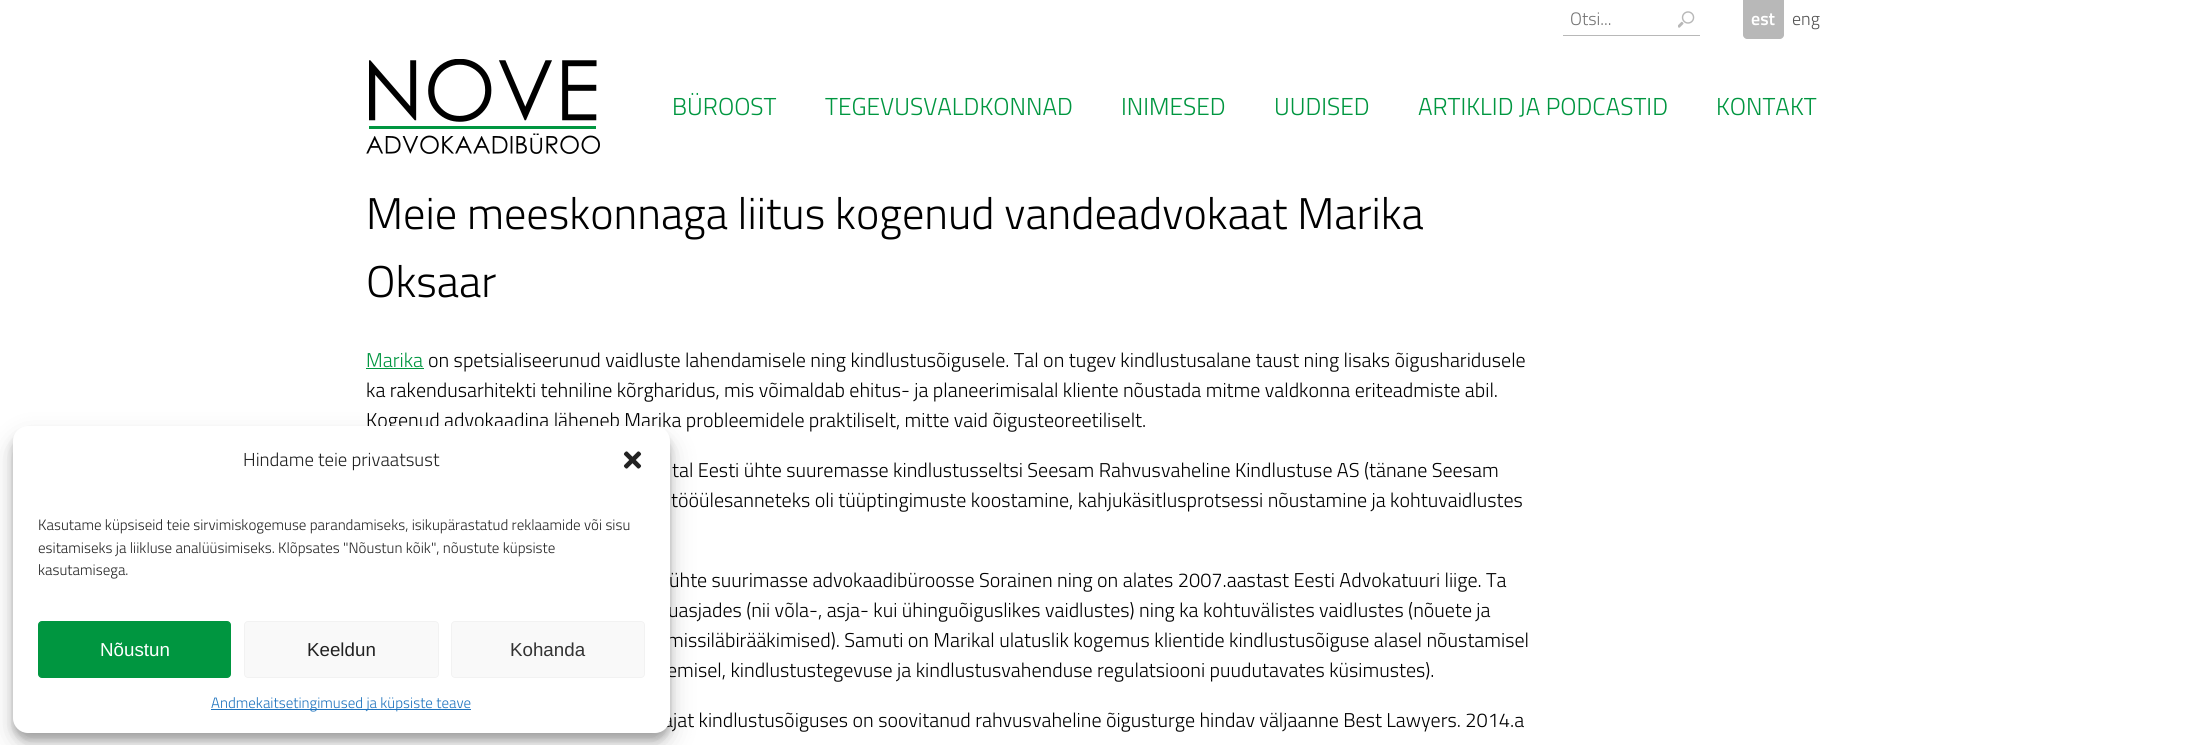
import math
import cairo

surface = cairo.ImageSurface(cairo.FORMAT_RGB24, 2194, 745)
cr = cairo.Context(surface)
options = cairo.FontOptions()
options.set_hint_metrics(cairo.HINT_METRICS_OFF)
options.set_hint_style(cairo.HINT_STYLE_NONE)
cr.set_font_options(options)
cr.set_miter_limit(4)


def rgb(code):
    cr.set_source_rgb(*(v / 255 for v in bytes.fromhex(code[-6:])))


def rrect(x, y, w, h, r):
    cr.new_sub_path()
    for i, (u, v) in enumerate([(x + w - r, y + h - r), (x + r, y + h - r), (x + r, y + r), (x + w - r, y + r)]):
        cr.arc(u, v, r, i * math.pi / 2, (i + 1) * math.pi / 2)
    cr.close_path()


def soft_shadow(x, y, w, h, r, blur, alpha):
    cr.push_group_with_content(cairo.CONTENT_ALPHA)
    cr.set_operator(cairo.OPERATOR_SOURCE)
    for i in range(15, -16, -2):
        e = blur * i / 6
        if min(w, h) + 2 * e > 0:
            cr.set_source_rgba(0, 0, 0, alpha * math.erfc((i - 1) / 8.5) / 2)
            rrect(x - e, y - e, w + 2 * e, h + 2 * e, max(0, min(r + e + blur * .6, min(w, h) / 2 + e)))
            cr.fill()
    cr.mask(cr.pop_group())


def image(path, x, y, w, h):
    cr.save()
    cr.set_source_surface(cairo.ImageSurface.create_from_png(path), x, y)
    cr.rectangle(x, y, w, h)
    cr.fill()
    cr.restore()


rgb("#ffffff")
cr.paint()
rgb("#000000")
soft_shadow(13, 434, 657, 306, 15, 4, 0.23)
soft_shadow(13, 439, 657, 306, 15, 12.5, 0.19)
rgb("#b8b8b8")
cr.rectangle(1563, 35, 137, 1)
cr.fill()
image("img/2.png", 1678, 11, 17, 17)
cr.new_path()
cr.move_to(1743, 0)
cr.line_to(1784, 0)
cr.line_to(1784, 35)
cr.curve_to(1784, 37, 1782, 39, 1780, 39)
cr.line_to(1747, 39)
cr.curve_to(1745, 39, 1743, 37, 1743, 35)
cr.close_path()
cr.fill()
image("img/3.png", 366, 59, 234, 95)
rgb("#009640")
cr.rectangle(366, 368, 58, 1)
cr.fill()
cr.select_font_face("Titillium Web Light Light")
cr.set_font_size(18)
rgb("#757575")
cr.move_to(1570, 25)
cr.show_text("Otsi...")
cr.select_font_face("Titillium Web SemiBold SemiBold")
rgb("#ffffff")
cr.move_to(1751, 25)
cr.show_text("est")
cr.select_font_face("Titillium Web Light Light")
rgb("#555555")
cr.move_to(1792, 25)
cr.show_text("eng")
cr.set_font_size(24.5)
rgb("#009640")
for x, y, s in [
    (672, 115, "BÜROOST"),
    (825, 115, "TEGEVUSVALDKONNAD"),
    (1121, 115, "INIMESED"),
    (1274, 115, "UUDISED"),
    (1418, 115, "ARTIKLID JA PODCASTID"),
    (1716, 115, "KONTAKT"),
]:
    cr.move_to(x, y)
    cr.show_text(s)
cr.set_font_size(44.4)
rgb("#000000")
cr.move_to(366, 229)
cr.show_text("Meie meeskonnaga liitus kogenud vandeadvokaat Marika")
cr.move_to(366, 297)
cr.show_text("Oksaar")
cr.set_font_size(20)
rgb("#009640")
cr.move_to(366, 367)
cr.show_text("Marika")
rgb("#000000")
for x, y, s in [
    (428, 367, "on spetsialiseerunud vaidluste lahendamisele ning kindlustusõigusele. Tal on tugev kindlustusalane taust ning lisaks õigusharidusele"),
    (366, 397, "ka rakendusarhitekti tehniline kõrgharidus, mis võimaldab ehitus- ja planeerimisalal kliente nõustada mitme valdkonna eriteadmiste abil."),
    (366, 427, "Kogenud advokaadina läheneb Marika probleemidele praktiliselt, mitte vaid õigusteoreetiliselt."),
    (672, 477, "tal Eesti ühte suuremasse kindlustusseltsi Seesam Rahvusvaheline Kindlustuse AS (tänane Seesam"),
    (671, 507, "tööülesanneteks oli tüüptingimuste koostamine, kahjukäsitlusprotsessi nõustamine ja kohtuvaidlustes"),
    (669, 587, "ühte suurimasse advokaadibüroosse Sorainen ning on alates 2007.aastast Eesti Advokatuuri liige. Ta"),
    (668, 617, "uasjades (nii võla-, asja- kui ühinguõiguslikes vaidlustes) ning ka kohtuvälistes vaidlustes (nõuete ja"),
    (667, 647, "missiläbirääkimised). Samuti on Marikal ulatuslik kogemus klientide kindlustusõiguse alasel nõustamisel"),
    (667, 677, "emisel, kindlustustegevuse ja kindlustusvahenduse regulatsiooni puudutavates küsimustes)."),
    (663, 727, "ajat kindlustusõiguses on soovitanud rahvusvaheline õigusturge hindav väljaanne Best Lawyers. 2014.a"),
]:
    cr.move_to(x, y)
    cr.show_text(s)
rgb("#ffffff")
rrect(13, 426, 657, 307, 15)
cr.fill()
cr.set_font_size(15)
rgb("#222222")
for x, y, s in [
    (38, 575, "kasutamisega."),
    (38, 553, "esitamiseks ja liikluse analüüsimiseks. Klõpsates \"Nõustun kõik\", nõustute küpsiste"),
    (38, 530, "Kasutame küpsiseid teie sirvimiskogemuse parandamiseks, isikupärastatud reklaamide või sisu"),
]:
    cr.move_to(x, y)
    cr.show_text(s)
image("img/1.png", 623, 451, 19, 18)
rgb("#1e73be")
cr.rectangle(211, 709, 260, 1)
cr.fill()
cr.move_to(211, 708)
cr.show_text("Andmekaitsetingimused ja küpsiste teave")
rgb("#f9f9f9")
rrect(451.5, 621.5, 193, 56, 3.5)
cr.fill_preserve()
rgb("#f2f2f2")
cr.set_line_width(1)
cr.stroke()
cr.select_font_face("Liberation Sans")
cr.set_font_size(18.75)
rgb("#333333")
cr.move_to(510, 656)
cr.show_text("Kohanda")
rgb("#f9f9f9")
rrect(244.5, 621.5, 194, 56, 3.5)
cr.fill_preserve()
rgb("#f2f2f2")
cr.stroke()
rgb("#222222")
cr.move_to(307, 656)
cr.show_text("Keeldun")
rgb("#009640")
rrect(38.5, 621.5, 192, 56, 3.5)
cr.fill_preserve()
cr.stroke()
rgb("#ffffff")
cr.move_to(100, 656)
cr.show_text("Nõustun")
cr.select_font_face("Titillium Web Light Light")
rgb("#222222")
cr.move_to(243, 466)
cr.show_text("Hindame teie privaatsust")
surface.write_to_png("page.png")
